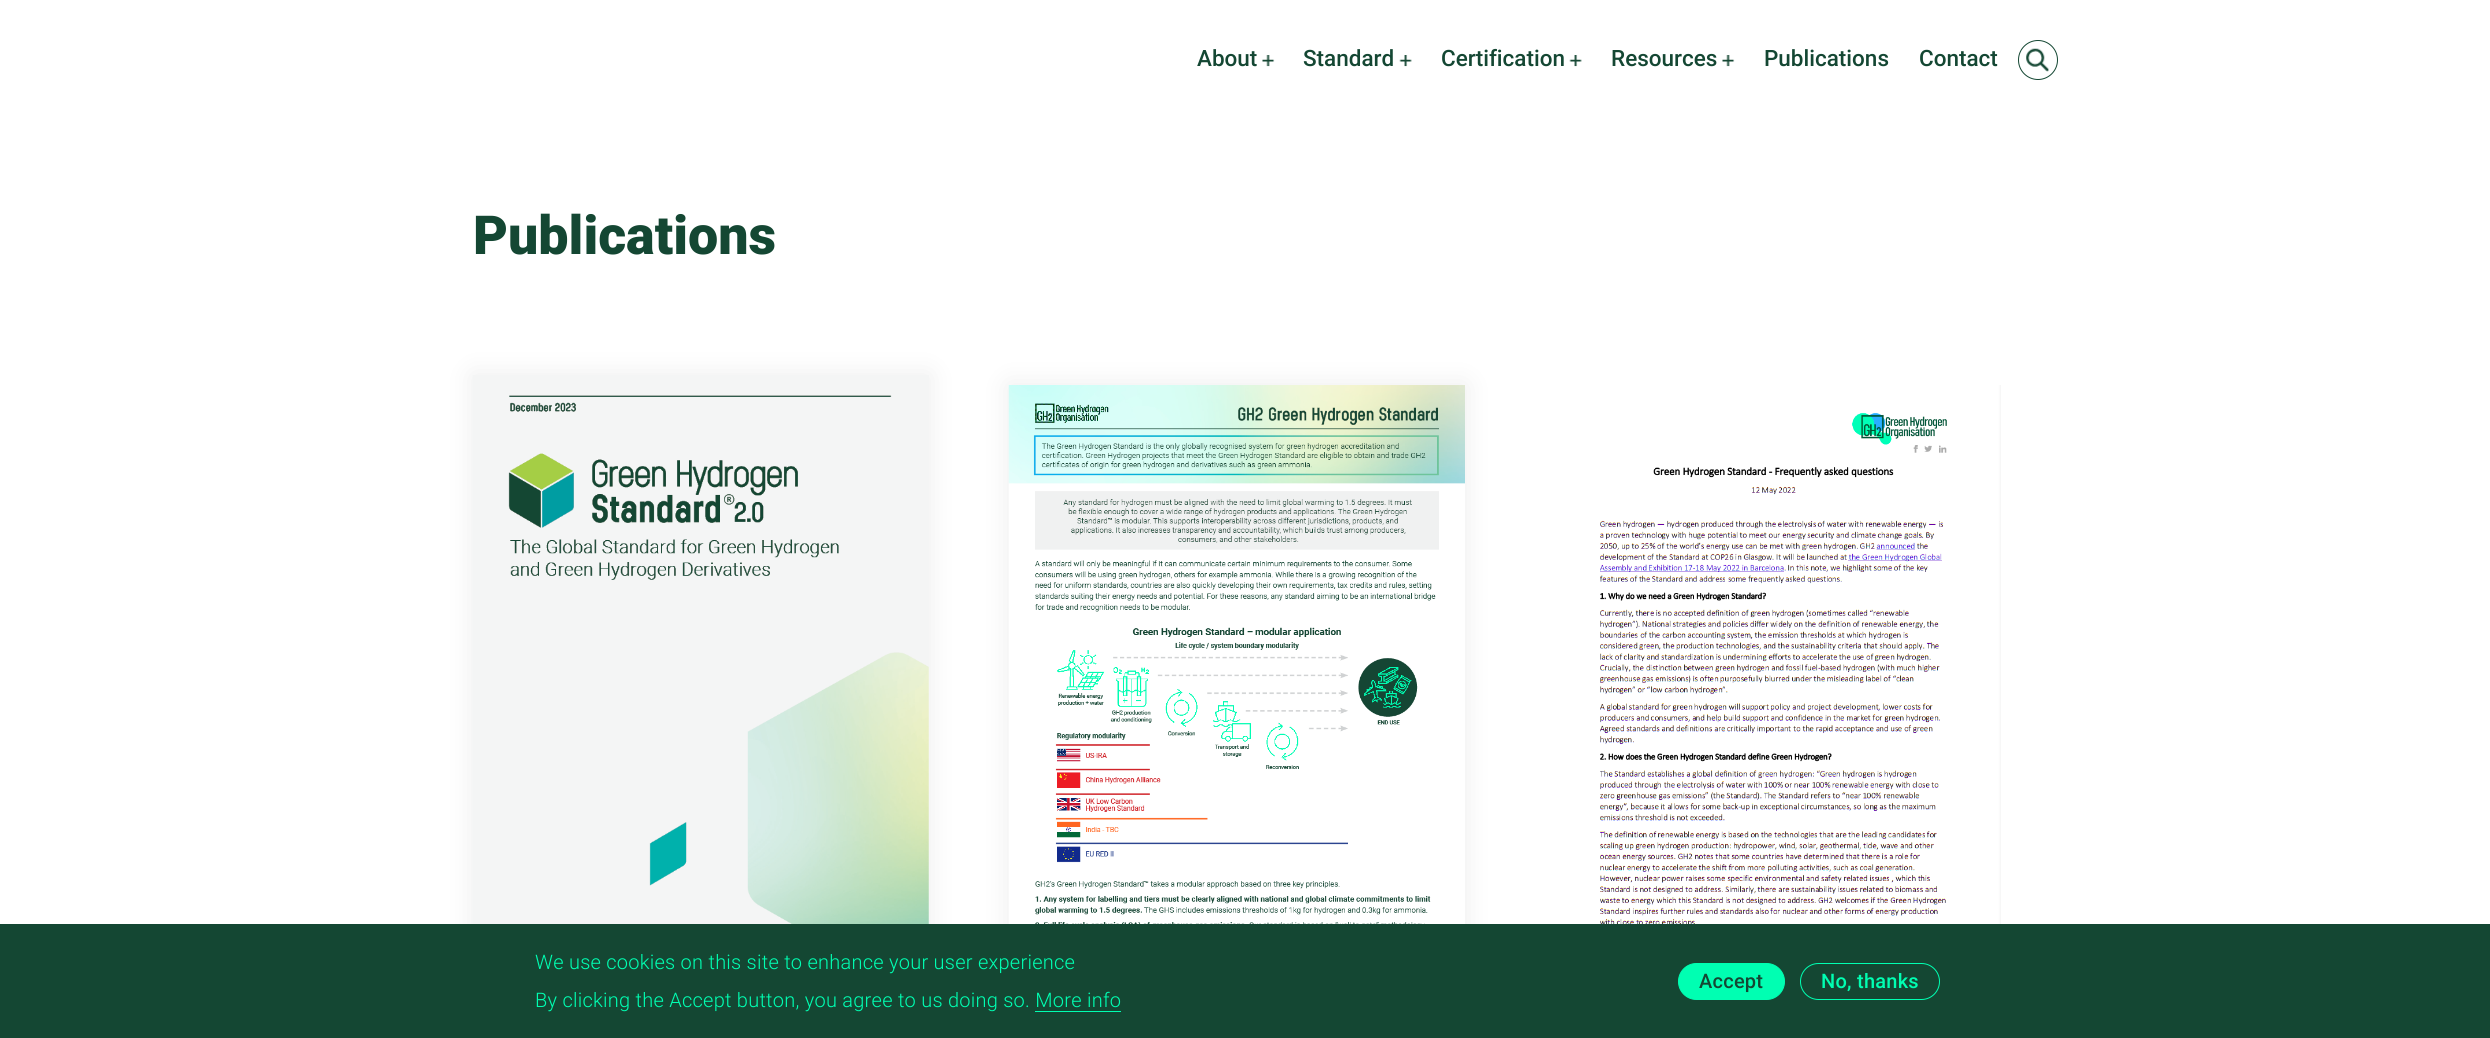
import math
import cairo

surface = cairo.ImageSurface(cairo.FORMAT_RGB24, 2490, 1038)
cr = cairo.Context(surface)
options = cairo.FontOptions()
options.set_hint_metrics(cairo.HINT_METRICS_OFF)
options.set_hint_style(cairo.HINT_STYLE_NONE)
cr.set_font_options(options)
cr.set_miter_limit(4)


def rgb(code):
    cr.set_source_rgb(*(v / 255 for v in bytes.fromhex(code[-6:])))


def tracked(x, y, s, letter, word):
    cr.move_to(x, y)
    for ch in s:
        cr.show_text(ch)
        cr.rel_move_to(letter + word * (ch == ' '), 0)


def rrect(x, y, w, h, r):
    cr.new_sub_path()
    for i, (u, v) in enumerate([(x + w - r, y + h - r), (x + r, y + h - r), (x + r, y + r), (x + w - r, y + r)]):
        cr.arc(u, v, r, i * math.pi / 2, (i + 1) * math.pi / 2)
    cr.close_path()


def soft_shadow(x, y, w, h, r, blur, alpha):
    cr.push_group_with_content(cairo.CONTENT_ALPHA)
    cr.set_operator(cairo.OPERATOR_SOURCE)
    for i in range(15, -16, -2):
        e = blur * i / 6
        if min(w, h) + 2 * e > 0:
            cr.set_source_rgba(0, 0, 0, alpha * math.erfc((i - 1) / 8.5) / 2)
            rrect(x - e, y - e, w + 2 * e, h + 2 * e, max(0, min(r + e + blur * .6, min(w, h) / 2 + e)))
            cr.fill()
    cr.mask(cr.pop_group())


def image(path, x, y, w, h):
    cr.save()
    cr.set_source_surface(cairo.ImageSurface.create_from_png(path), x, y)
    cr.rectangle(x, y, w, h)
    cr.fill()
    cr.restore()


rgb("#ffffff")
cr.paint()
image("img/1.png", 1262, 55, 13, 12)
image("img/2.png", 1399, 55, 13, 12)
image("img/2.png", 1569, 55, 13, 12)
image("img/3.png", 1722, 55, 13, 12)
cr.arc(2038, 60, 19.5, 0, 2 * math.pi)
rgb("#144733")
cr.set_line_width(1)
cr.stroke()
image("img/4.png", 2026, 48, 23, 24)
rgb("#ededed")
soft_shadow(473, 375, 456, 649, 0, 12.5, 1)
image("img/5.png", 472, 375, 457, 549)
soft_shadow(1009, 385, 456, 648, 0, 12.5, 1)
image("img/6.png", 1008, 385, 457, 539)
image("img/7.png", 1600, 385, 401, 539)
rgb("#144733")
cr.rectangle(0, 924, 2490, 114)
cr.fill()
rgb("#00ffb2")
cr.rectangle(1035, 1011, 86, 1)
cr.fill()
rrect(1678.5, 963.5, 106, 36, 18)
cr.fill_preserve()
cr.stroke()
rrect(1800.5, 963.5, 139, 36, 18)
cr.stroke()
cr.select_font_face("Roboto Medium")
cr.set_font_size(22.5)
rgb("#144733")
for x, y, s in [
    (1197, 66, "About"),
    (1303, 66, "Standard"),
    (1441, 66, "Certification"),
    (1611, 66, "Resources"),
    (1764, 66, "Publications"),
    (1919, 66, "Contact"),
]:
    cr.move_to(x, y)
    cr.show_text(s)
cr.select_font_face("Roboto Black")
cr.set_font_size(53.75)
cr.move_to(473, 254)
cr.show_text("Publications")
cr.select_font_face("Roboto Light")
cr.set_font_size(20)
rgb("#00ffb2")
tracked(535, 969, "We use cookies on this site to enhance your user experience", 0.25, 0)
tracked(535, 1007, "By clicking the Accept button, you agree to us doing so. More info", 0.25, 0)
cr.select_font_face("Roboto Medium")
rgb("#144733")
tracked(1699, 988, "Accept", 0.25, 0)
rgb("#00ffb2")
tracked(1821, 988, "No, thanks", 0.25, 0)
surface.write_to_png("page.png")
